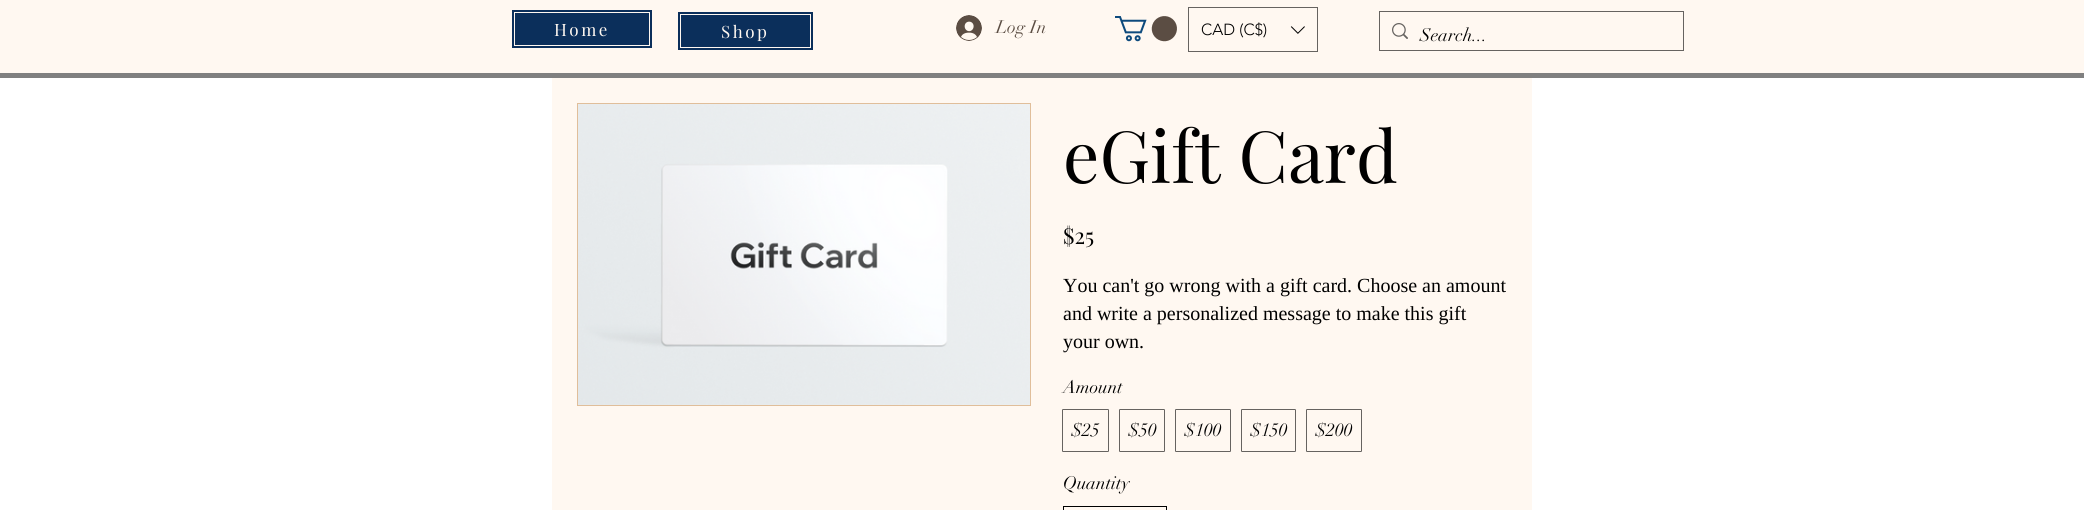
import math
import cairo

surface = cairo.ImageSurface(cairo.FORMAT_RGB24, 2084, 510)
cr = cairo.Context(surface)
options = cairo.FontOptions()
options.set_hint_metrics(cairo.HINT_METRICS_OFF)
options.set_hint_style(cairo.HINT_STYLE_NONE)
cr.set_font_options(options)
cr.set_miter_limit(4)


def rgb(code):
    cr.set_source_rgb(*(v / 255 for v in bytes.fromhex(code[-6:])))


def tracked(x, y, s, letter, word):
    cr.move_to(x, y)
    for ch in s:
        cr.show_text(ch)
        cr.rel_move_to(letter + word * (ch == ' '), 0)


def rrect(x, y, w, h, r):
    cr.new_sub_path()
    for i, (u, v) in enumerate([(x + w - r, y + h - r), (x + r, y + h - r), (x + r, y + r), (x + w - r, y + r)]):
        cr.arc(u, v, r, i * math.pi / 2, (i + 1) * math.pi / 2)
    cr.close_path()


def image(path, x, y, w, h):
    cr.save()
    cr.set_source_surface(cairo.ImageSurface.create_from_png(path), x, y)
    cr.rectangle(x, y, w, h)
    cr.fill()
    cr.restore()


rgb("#ffffff")
cr.paint()
for x, y, w, h, color in [
    (0, 0, 2084, 73, "#fff8f1"),
    (0, 73, 2084, 5, "#808080"),
    (512, 10, 140, 38, "#0b2f5b"),
]:
    rgb(color)
    cr.rectangle(x, y, w, h)
    cr.fill()
cr.rectangle(514.5, 12.5, 135, 33)
rgb("#fff8f1")
cr.set_line_width(1)
cr.stroke()
rgb("#0b2f5b")
cr.rectangle(678, 12, 135, 38)
cr.fill()
cr.rectangle(680.5, 14.5, 130, 33)
rgb("#fff8f1")
cr.stroke()
image("img/1.png", 956, 15, 26, 26)
image("img/2.png", 1115, 16, 62, 26)
cr.rectangle(1188.5, 7.5, 129, 44)
rgb("#666360")
cr.stroke()
image("img/3.png", 1290, 26, 15, 8)
cr.rectangle(1379.5, 11.5, 304, 39)
cr.stroke()
image("img/4.png", 1392, 23, 16, 16)
rgb("#fff8f1")
cr.rectangle(552, 78, 980, 432)
cr.fill()
cr.rectangle(577.5, 103.5, 453, 302)
rgb("#e0be9a")
cr.stroke()
image("img/5.png", 578, 104, 452, 301)
rrect(1062.5, 409.5, 46, 42, 0.5)
rgb("#666360")
cr.stroke()
rrect(1119.5, 409.5, 45, 42, 0.5)
cr.stroke()
rrect(1175.5, 409.5, 55, 42, 0.5)
cr.stroke()
rrect(1241.5, 409.5, 54, 42, 0.5)
cr.stroke()
rrect(1306.5, 409.5, 55, 42, 0.5)
cr.stroke()
cr.rectangle(1063.5, 506.5, 103, 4)
rgb("#000000")
cr.stroke()
cr.select_font_face("Playfair Display")
cr.set_font_size(17)
rgb("#fff8f1")
tracked(554, 36, "Home", 2.5, 0)
tracked(721, 38, "Shop", 2.5, 0)
cr.select_font_face("didot")
cr.set_font_size(18)
rgb("#5b4d43")
cr.move_to(996, 33)
cr.show_text("Log In")
cr.select_font_face("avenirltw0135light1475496 Light")
cr.set_font_size(16)
rgb("#000000")
cr.move_to(1201, 35)
cr.show_text("CAD (C$)")
cr.select_font_face("didot")
cr.set_font_size(18)
cr.move_to(1420, 41)
cr.show_text("Search...")
cr.select_font_face("Playfair Display")
cr.set_font_size(72)
cr.move_to(1063, 183)
cr.show_text("eGift Card")
cr.set_font_size(22)
cr.move_to(1063, 244)
cr.show_text("$25")
cr.select_font_face("Liberation Serif")
cr.set_font_size(20)
for x, y, s in [
    (1063, 292, "You can't go wrong with a gift card. Choose an amount"),
    (1063, 320, "and write a personalized message to make this gift"),
    (1063, 348, "your own."),
]:
    cr.move_to(x, y)
    cr.show_text(s)
cr.select_font_face("didot")
cr.set_font_size(18)
for x, y, s in [
    (1063, 393, "Amount"),
    (1071, 436, "$25"),
    (1128, 436, "$50"),
    (1184, 436, "$100"),
    (1250, 436, "$150"),
    (1315, 436, "$200"),
    (1063, 489, "Quantity"),
]:
    cr.move_to(x, y)
    cr.show_text(s)
surface.write_to_png("page.png")
